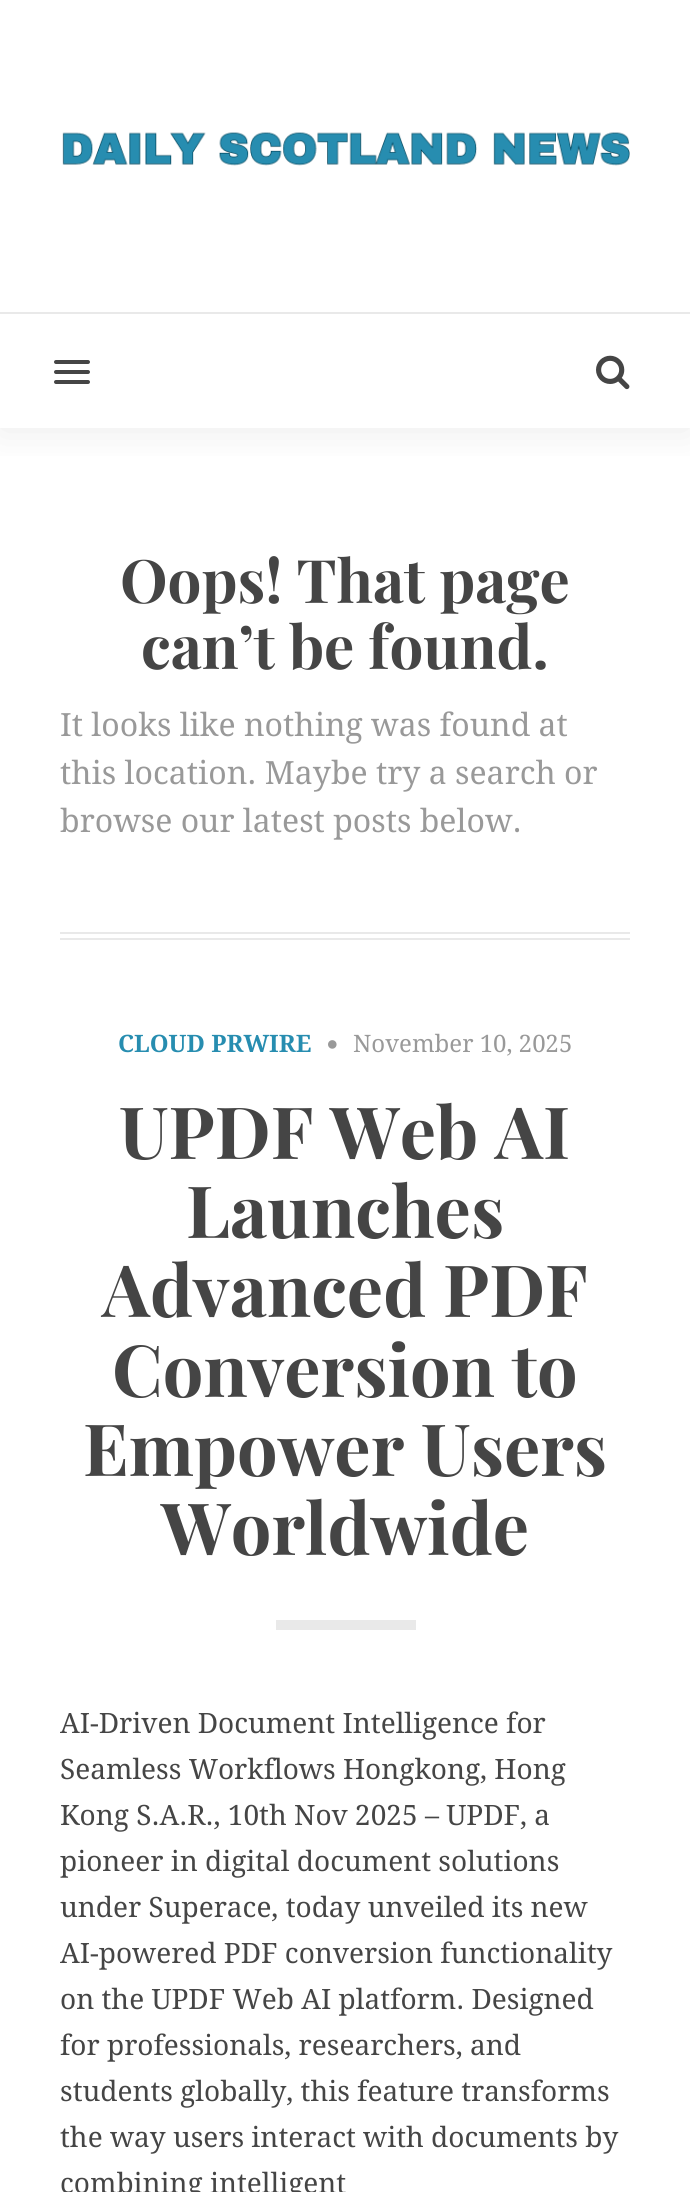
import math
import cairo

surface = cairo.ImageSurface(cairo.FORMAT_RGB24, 690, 2192)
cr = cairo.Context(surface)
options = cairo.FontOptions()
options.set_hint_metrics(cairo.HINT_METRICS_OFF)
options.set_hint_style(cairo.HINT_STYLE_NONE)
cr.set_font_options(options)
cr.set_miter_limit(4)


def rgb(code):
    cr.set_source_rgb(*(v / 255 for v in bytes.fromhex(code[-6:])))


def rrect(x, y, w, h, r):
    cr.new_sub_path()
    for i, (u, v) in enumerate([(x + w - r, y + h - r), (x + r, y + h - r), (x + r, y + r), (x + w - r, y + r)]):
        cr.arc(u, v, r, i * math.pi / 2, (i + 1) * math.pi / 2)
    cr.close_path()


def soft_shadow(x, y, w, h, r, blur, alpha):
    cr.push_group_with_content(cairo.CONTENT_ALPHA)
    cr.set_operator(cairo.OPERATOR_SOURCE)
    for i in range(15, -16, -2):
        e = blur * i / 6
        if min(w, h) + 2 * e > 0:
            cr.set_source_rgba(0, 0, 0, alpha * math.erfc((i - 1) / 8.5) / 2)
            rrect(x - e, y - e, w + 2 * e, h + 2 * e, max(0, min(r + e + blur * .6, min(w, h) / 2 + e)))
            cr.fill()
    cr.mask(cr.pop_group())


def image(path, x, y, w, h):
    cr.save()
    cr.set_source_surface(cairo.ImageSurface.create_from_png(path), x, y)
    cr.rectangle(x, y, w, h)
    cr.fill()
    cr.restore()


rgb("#ffffff")
cr.paint()
cr.save()
cr.rectangle(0, 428, 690, 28)
cr.clip()
rgb("#999999")
soft_shadow(0, 2, 690, 428, 0, 20, 0.2)
cr.restore()
image("img/1.png", 62, 132, 568, 34)
rgb("#e9e9e9")
cr.rectangle(0, 312, 690, 2)
cr.fill()
rgb("#454545")
rrect(54, 360, 36, 4, 2)
cr.fill()
rrect(54, 370, 36, 4, 2)
cr.fill()
rrect(54, 380, 36, 4, 2)
cr.fill()
image("img/2.png", 596, 355, 34, 35)
rgb("#e9e9e9")
cr.rectangle(60, 932, 570, 2)
cr.fill()
cr.rectangle(60, 938, 570, 2)
cr.fill()
image("img/3.png", 328, 1040, 9, 9)
cr.rectangle(276, 1620, 140, 10)
cr.fill()
cr.select_font_face("Playfair Display", cairo.FONT_SLANT_NORMAL, cairo.FONT_WEIGHT_BOLD)
cr.set_font_size(60)
rgb("#454545")
cr.move_to(120, 603)
cr.show_text("Oops! That page")
cr.move_to(141, 669)
cr.show_text("can’t be found.")
cr.select_font_face("Droid Serif")
cr.set_font_size(32)
rgb("#999999")
for x, y, s in [
    (60, 736, "It looks like nothing was found at"),
    (60, 784, "this location. Maybe try a search or"),
    (60, 832, "browse our latest posts below."),
]:
    cr.move_to(x, y)
    cr.show_text(s)
cr.select_font_face("Droid Serif", cairo.FONT_SLANT_NORMAL, cairo.FONT_WEIGHT_BOLD)
cr.set_font_size(24)
rgb("#278db0")
cr.move_to(118, 1052)
cr.show_text("CLOUD PRWIRE")
cr.select_font_face("Droid Serif")
rgb("#999999")
cr.move_to(353, 1052)
cr.show_text("November 10, 2025")
cr.select_font_face("Playfair Display", cairo.FONT_SLANT_NORMAL, cairo.FONT_WEIGHT_BOLD)
cr.set_font_size(72)
rgb("#454545")
for x, y, s in [
    (119, 1159, "UPDF Web AI"),
    (186, 1238, "Launches"),
    (102, 1317, "Advanced PDF"),
    (112, 1397, "Conversion to"),
    (83, 1476, "Empower Users"),
    (161, 1555, "Worldwide"),
]:
    cr.move_to(x, y)
    cr.show_text(s)
cr.select_font_face("Droid Serif")
cr.set_font_size(28)
for x, y, s in [
    (60, 1733, "AI-Driven Document Intelligence for"),
    (60, 1779, "Seamless Workflows Hongkong, Hong"),
    (60, 1825, "Kong S.A.R., 10th Nov 2025 – UPDF, a"),
    (60, 1871, "pioneer in digital document solutions"),
    (60, 1917, "under Superace, today unveiled its new"),
    (60, 1963, "AI-powered PDF conversion functionality"),
    (60, 2009, "on the UPDF Web AI platform. Designed"),
    (60, 2055, "for professionals, researchers, and"),
    (60, 2101, "students globally, this feature transforms"),
    (60, 2147, "the way users interact with documents by"),
    (60, 2193, "combining intelligent"),
]:
    cr.move_to(x, y)
    cr.show_text(s)
surface.write_to_png("page.png")
